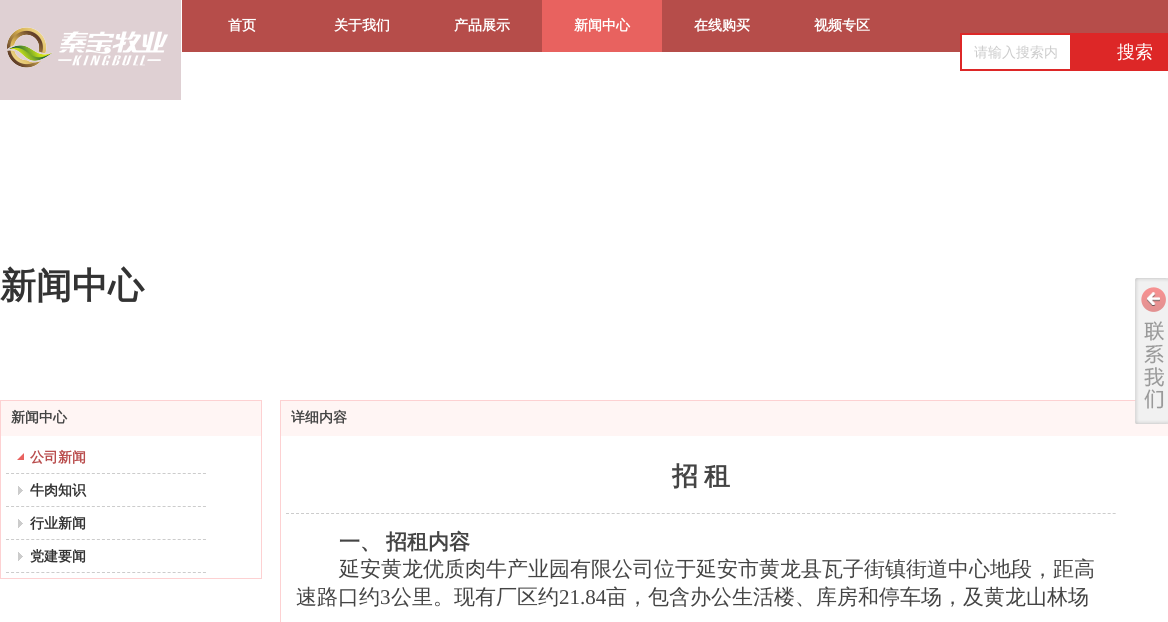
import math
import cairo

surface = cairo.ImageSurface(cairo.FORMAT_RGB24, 1168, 622)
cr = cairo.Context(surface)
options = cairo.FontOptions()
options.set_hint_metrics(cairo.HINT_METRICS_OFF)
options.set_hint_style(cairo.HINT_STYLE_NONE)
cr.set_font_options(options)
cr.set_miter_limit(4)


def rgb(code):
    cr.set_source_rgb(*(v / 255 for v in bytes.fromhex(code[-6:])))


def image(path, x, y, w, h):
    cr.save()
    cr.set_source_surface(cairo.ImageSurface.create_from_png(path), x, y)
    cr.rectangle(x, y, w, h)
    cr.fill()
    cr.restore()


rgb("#ffffff")
cr.paint()
for x, y, w, h, color in [
    (182, 0, 986, 52, "#b64d4a"),
    (542, 0, 120, 52, "#e8625f"),
    (0, 0, 181, 100, "#dfd0d3"),
]:
    rgb(color)
    cr.rectangle(x, y, w, h)
    cr.fill()
image("img/1.png", 7, 27, 161, 41)
rgb("#ffffff")
cr.rectangle(962, 35, 108, 17)
cr.fill()
cr.rectangle(961, 34, 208, 36)
rgb("#dd2727")
cr.stroke()
cr.rectangle(1070, 35, 98, 34)
cr.fill()
cr.rectangle(0.5, 400.5, 261, 178)
rgb("#fdd1d2")
cr.set_line_width(1)
cr.stroke()
rgb("#fff5f4")
cr.rectangle(1, 401, 260, 35)
cr.fill()
cr.new_path()
cr.move_to(6, 473.5)
cr.line_to(206, 473.5)
rgb("#cccccc")
cr.set_dash([3, 2.05])
cr.stroke()
image("img/2.png", 17, 453, 7, 7)
cr.new_path()
cr.move_to(6, 506.5)
cr.line_to(206, 506.5)
cr.stroke()
image("img/3.png", 18, 486, 5, 9)
cr.new_path()
cr.move_to(6, 539.5)
cr.line_to(206, 539.5)
cr.stroke()
image("img/3.png", 18, 519, 5, 9)
cr.new_path()
cr.move_to(6, 572.5)
cr.line_to(206, 572.5)
cr.stroke()
image("img/3.png", 18, 552, 5, 9)
cr.rectangle(280.5, 400.5, 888, 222)
rgb("#fdd1d2")
cr.set_dash([])
cr.stroke()
rgb("#fff5f4")
cr.rectangle(281, 401, 887, 35)
cr.fill()
cr.new_path()
cr.move_to(286, 513.5)
cr.line_to(1116, 513.5)
rgb("#cccccc")
cr.set_dash([3, 2.01])
cr.stroke()
image("img/4.png", 1135, 278, 33, 146)
cr.select_font_face("WenQuanYi Zen Hei", cairo.FONT_SLANT_NORMAL, cairo.FONT_WEIGHT_BOLD)
cr.set_font_size(14)
rgb("#ffffff")
for x, y, s in [
    (228, 30, "首页"),
    (334, 30, "关于我们"),
    (454, 30, "产品展示"),
    (574, 30, "新闻中心"),
    (694, 30, "在线购买"),
    (814, 30, "视频专区"),
]:
    cr.move_to(x, y)
    cr.show_text(s)
cr.select_font_face("WenQuanYi Zen Hei Medium")
rgb("#cccccc")
cr.move_to(974, 57)
cr.show_text("请输入搜索内")
cr.set_font_size(18)
rgb("#ffffff")
cr.move_to(1117, 58)
cr.show_text("搜索")
cr.select_font_face("WenQuanYi Zen Hei", cairo.FONT_SLANT_NORMAL, cairo.FONT_WEIGHT_BOLD)
cr.set_font_size(36)
rgb("#333333")
cr.move_to(0, 298)
cr.show_text("新闻中心")
cr.set_font_size(14)
rgb("#444444")
cr.move_to(11, 422)
cr.show_text("新闻中心")
rgb("#b94d4d")
cr.move_to(30, 462)
cr.show_text("公司新闻")
rgb("#333333")
for x, y, s in [
    (30, 495, "牛肉知识"),
    (30, 528, "行业新闻"),
    (30, 561, "党建要闻"),
]:
    cr.move_to(x, y)
    cr.show_text(s)
rgb("#444444")
cr.move_to(291, 422)
cr.show_text("详细内容")
cr.set_font_size(26)
cr.move_to(672, 485)
cr.show_text("招")
cr.move_to(704, 485)
cr.show_text("租")
cr.set_font_size(21)
cr.move_to(339, 549)
cr.show_text("一、")
cr.move_to(386, 549)
cr.show_text("招租内容")
cr.select_font_face("WenQuanYi Zen Hei Medium")
cr.move_to(339, 576)
cr.show_text("延安黄龙优质肉牛产业园有限公司位于延安市黄龙县瓦子街镇街道中心地段，距高")
cr.move_to(296, 604)
cr.show_text("速路口约")
cr.select_font_face("Liberation Serif")
cr.move_to(380, 604)
cr.show_text("3")
cr.select_font_face("WenQuanYi Zen Hei Medium")
cr.move_to(391, 604)
cr.show_text("公里。现有厂区约")
cr.select_font_face("Liberation Serif")
cr.move_to(559, 604)
cr.show_text("21.84")
cr.select_font_face("WenQuanYi Zen Hei Medium")
cr.move_to(606, 604)
cr.show_text("亩，包含办公生活楼、库房和停车场，及黄龙山林场")
surface.write_to_png("page.png")
